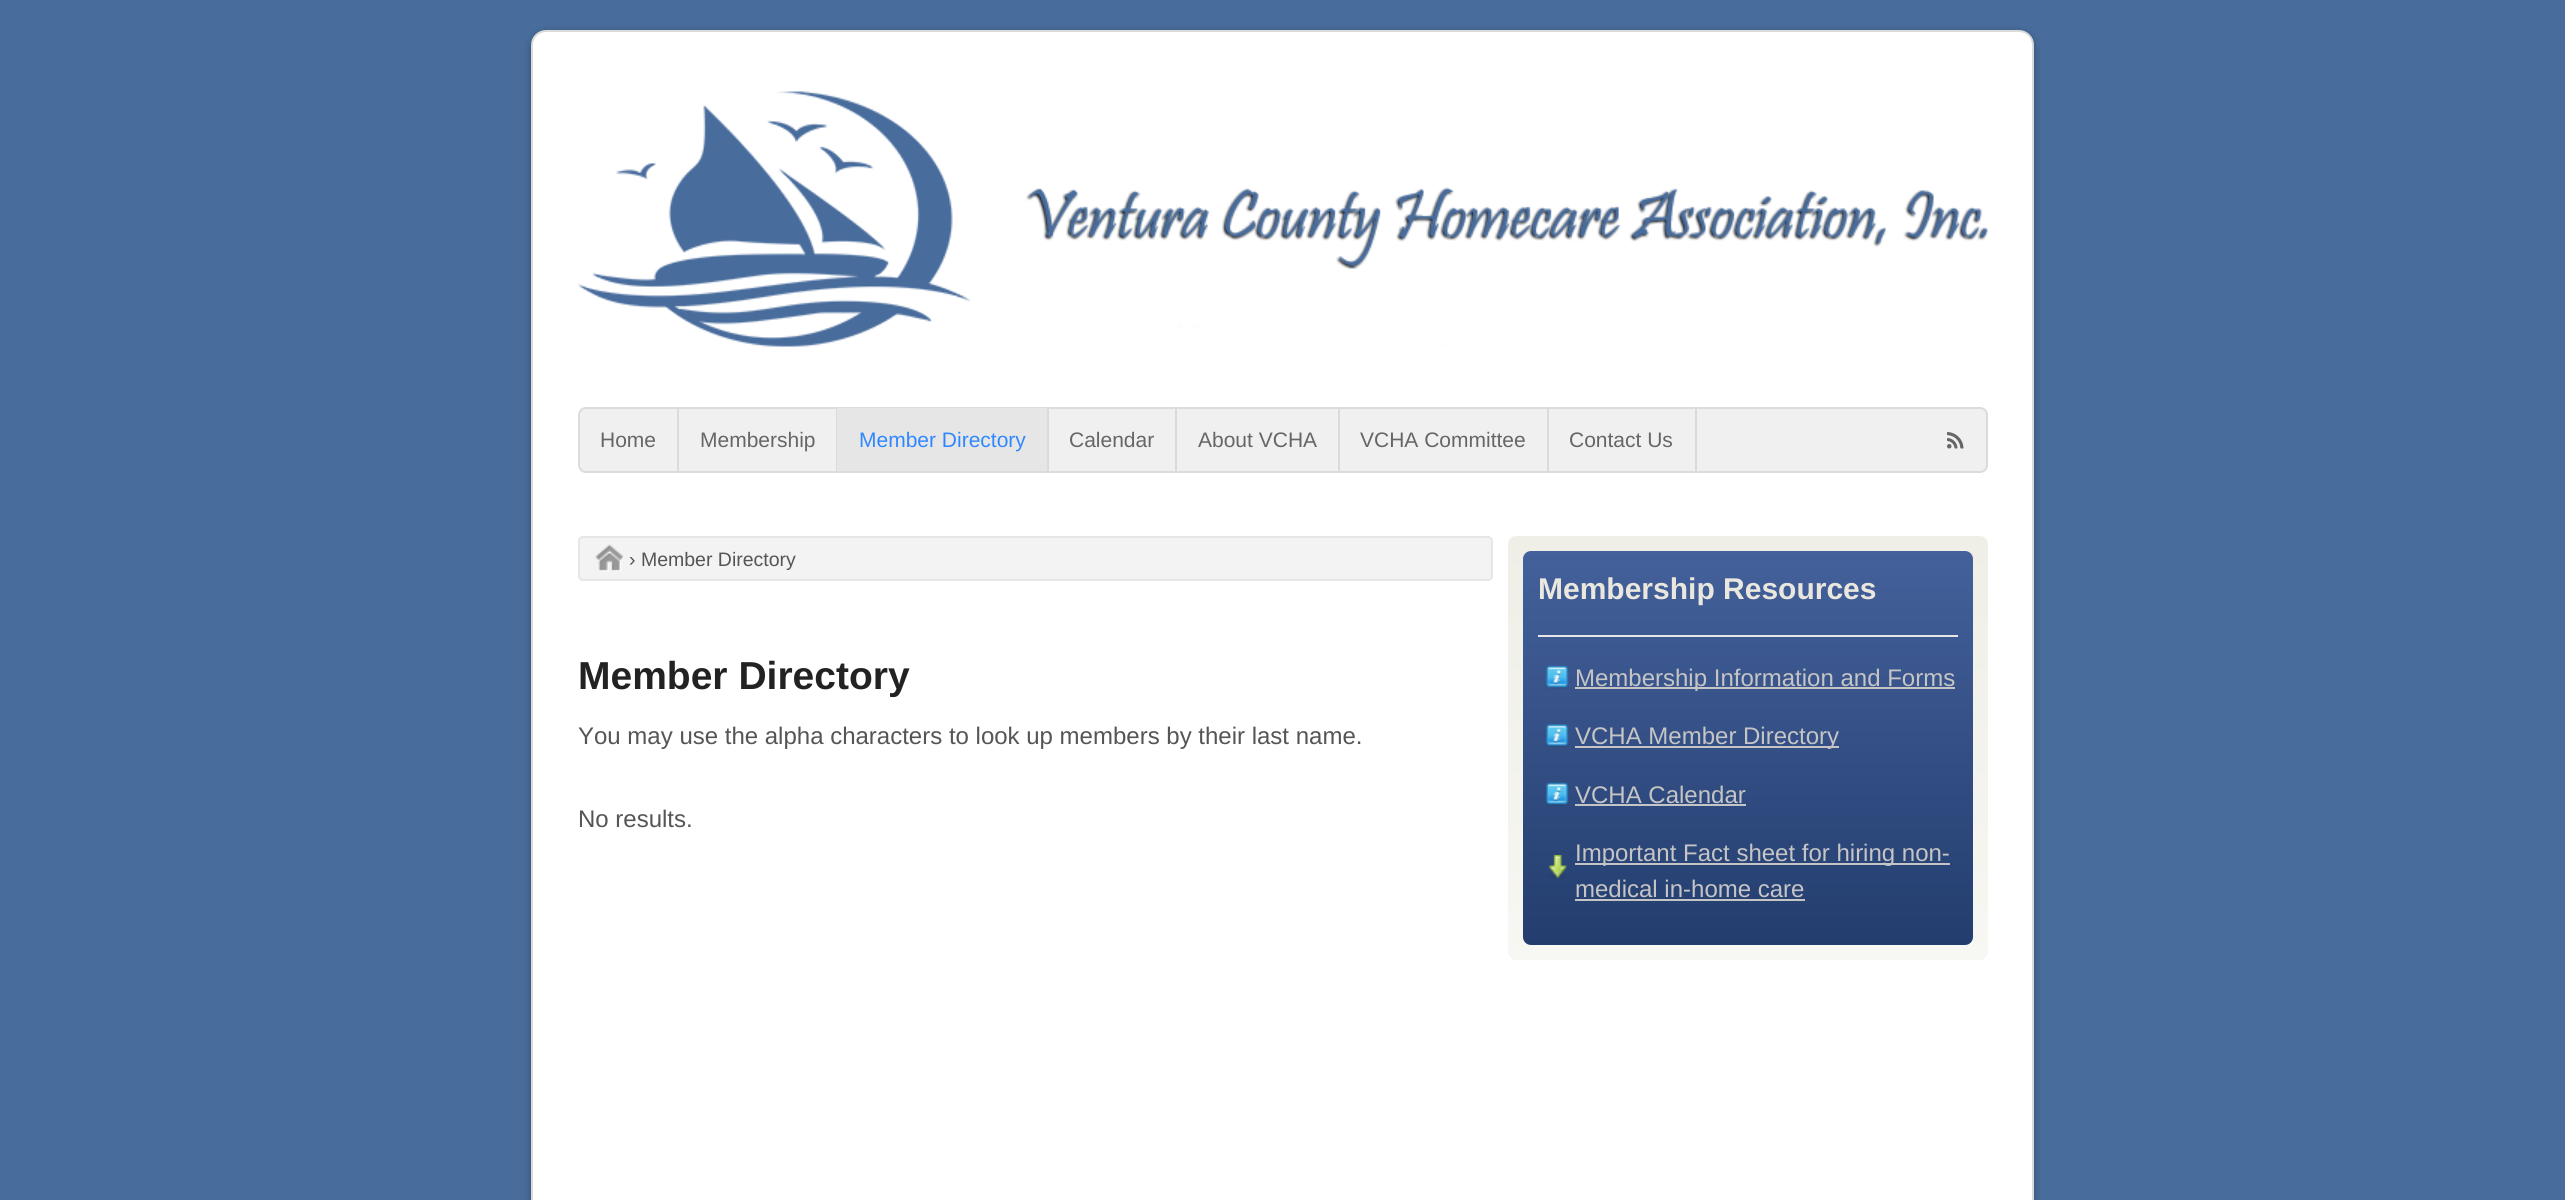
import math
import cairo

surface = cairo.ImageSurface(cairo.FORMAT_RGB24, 2565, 1200)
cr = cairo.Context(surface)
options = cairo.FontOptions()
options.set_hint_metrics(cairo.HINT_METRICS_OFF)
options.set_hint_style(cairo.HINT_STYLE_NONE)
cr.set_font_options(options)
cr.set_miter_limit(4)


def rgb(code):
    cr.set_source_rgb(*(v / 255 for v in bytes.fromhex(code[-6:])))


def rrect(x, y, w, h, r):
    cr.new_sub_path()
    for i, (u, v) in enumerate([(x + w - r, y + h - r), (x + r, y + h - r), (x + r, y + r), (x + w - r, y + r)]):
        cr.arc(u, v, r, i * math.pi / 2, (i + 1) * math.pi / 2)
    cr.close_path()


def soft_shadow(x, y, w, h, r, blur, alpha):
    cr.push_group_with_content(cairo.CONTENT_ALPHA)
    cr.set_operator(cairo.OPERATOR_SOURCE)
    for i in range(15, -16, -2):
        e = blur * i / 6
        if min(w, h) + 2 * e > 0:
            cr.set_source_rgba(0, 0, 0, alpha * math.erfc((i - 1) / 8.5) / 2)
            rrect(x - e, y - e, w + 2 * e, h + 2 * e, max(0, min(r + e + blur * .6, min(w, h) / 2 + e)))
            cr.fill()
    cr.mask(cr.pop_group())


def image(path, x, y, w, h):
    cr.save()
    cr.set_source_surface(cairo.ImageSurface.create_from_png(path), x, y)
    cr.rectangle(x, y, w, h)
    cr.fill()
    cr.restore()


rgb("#486d9c")
cr.paint()
rgb("#000000")
soft_shadow(531, 32, 1503, 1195, 15, 4, 0.3)
rgb("#ffffff")
rrect(532, 31, 1501, 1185, 14)
cr.fill_preserve()
rgb("#dbdbdb")
cr.stroke()
image("img/1.png", 577, 91, 1411, 256)
rgb("#f0f0f0")
rrect(579, 408, 1408, 64, 7)
cr.fill_preserve()
rgb("#dbdbdb")
cr.stroke()
for x, y, w, h, color in [
    (677, 408, 2, 63, "#dbdbdb"),
    (836, 408, 1, 63, "#dbdbdb"),
    (1047, 408, 2, 63, "#dbdbdb"),
    (837, 408, 210, 63, "#e6e6e6"),
    (1175, 408, 2, 63, "#dbdbdb"),
    (1338, 408, 2, 63, "#dbdbdb"),
    (1547, 408, 2, 63, "#dbdbdb"),
    (1695, 408, 2, 63, "#dbdbdb"),
]:
    rgb(color)
    cr.rectangle(x, y, w, h)
    cr.fill()
image("img/2.png", 1947, 432, 17, 17)
rgb("#f3f3f3")
rrect(579, 537, 913, 43, 4)
cr.fill_preserve()
rgb("#e6e6e6")
cr.stroke()
image("img/3.png", 595, 544, 29, 28)
gradient = cairo.LinearGradient(1748, 536, 1748, 960)
gradient.add_color_stop_rgba(0, 0.937, 0.933, 0.906, 1)
gradient.add_color_stop_rgba(1, 0.969, 0.969, 0.953, 1)
cr.set_source(gradient)
rrect(1508, 536, 480, 424, 8)
cr.fill()
gradient = cairo.LinearGradient(1748, 551, 1748, 945)
gradient.add_color_stop_rgba(0, 0.267, 0.38, 0.608, 1)
gradient.add_color_stop_rgba(1, 0.137, 0.239, 0.431, 1)
cr.set_source(gradient)
rrect(1523, 551, 450, 394, 8)
cr.fill()
rgb("#e6e6e6")
cr.rectangle(1538, 635, 420, 2)
cr.fill()
image("img/4.png", 1545, 665, 24, 24)
rgb("#c5c5c5")
cr.rectangle(1575, 687, 380, 2)
cr.fill()
image("img/5.png", 1545, 724, 24, 23)
cr.rectangle(1575, 746, 264, 2)
cr.fill()
image("img/6.png", 1545, 782, 24, 24)
cr.rectangle(1575, 804, 171, 2)
cr.fill()
image("img/7.png", 1548, 855, 19, 23)
cr.rectangle(1575, 863, 375, 2)
cr.fill()
cr.rectangle(1575, 899, 230, 2)
cr.fill()
cr.select_font_face("Liberation Sans")
cr.set_font_size(21)
rgb("#666666")
cr.move_to(600, 447)
cr.show_text("Home")
cr.move_to(700, 447)
cr.show_text("Membership")
rgb("#3088ff")
cr.move_to(859, 447)
cr.show_text("Member Directory")
rgb("#666666")
for x, y, s in [
    (1069, 447, "Calendar"),
    (1198, 447, "About VCHA"),
    (1360, 447, "VCHA Committee"),
    (1569, 447, "Contact Us"),
]:
    cr.move_to(x, y)
    cr.show_text(s)
cr.set_font_size(19.5)
rgb("#555555")
cr.move_to(629, 566)
cr.show_text("› Member Directory")
cr.select_font_face("Liberation Sans", cairo.FONT_SLANT_NORMAL, cairo.FONT_WEIGHT_BOLD)
cr.set_font_size(39)
rgb("#222222")
cr.move_to(578, 689)
cr.show_text("Member Directory")
cr.select_font_face("Liberation Sans")
cr.set_font_size(24)
rgb("#555555")
cr.move_to(578, 744)
cr.show_text("You may use the alpha characters to look up members by their last name.")
cr.move_to(578, 827)
cr.show_text("No results.")
cr.select_font_face("Liberation Sans", cairo.FONT_SLANT_NORMAL, cairo.FONT_WEIGHT_BOLD)
cr.set_font_size(30)
rgb("#e9e7de")
cr.move_to(1538, 599)
cr.show_text("Membership Resources")
cr.select_font_face("Liberation Sans")
cr.set_font_size(24)
rgb("#c5c5c5")
for x, y, s in [
    (1575, 686, "Membership Information and Forms"),
    (1575, 744, "VCHA Member Directory"),
    (1575, 803, "VCHA Calendar"),
    (1575, 861, "Important Fact sheet for hiring non-"),
    (1575, 897, "medical in-home care"),
]:
    cr.move_to(x, y)
    cr.show_text(s)
surface.write_to_png("page.png")
